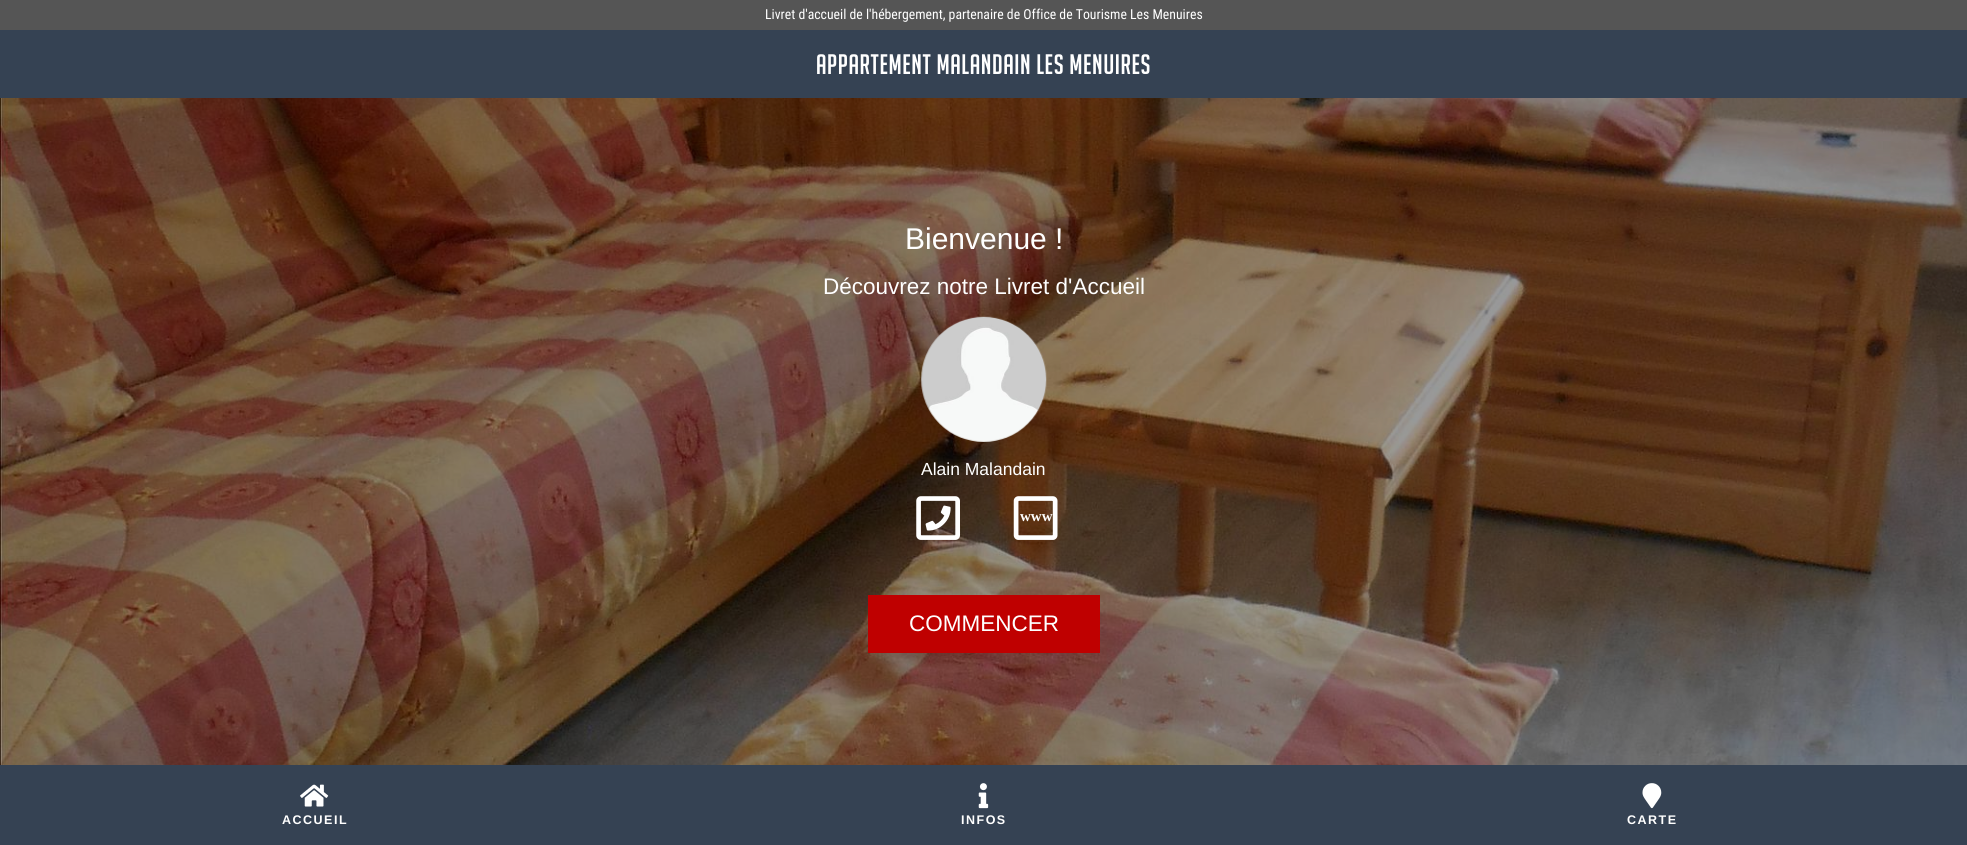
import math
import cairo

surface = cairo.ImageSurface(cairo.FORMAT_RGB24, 1967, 845)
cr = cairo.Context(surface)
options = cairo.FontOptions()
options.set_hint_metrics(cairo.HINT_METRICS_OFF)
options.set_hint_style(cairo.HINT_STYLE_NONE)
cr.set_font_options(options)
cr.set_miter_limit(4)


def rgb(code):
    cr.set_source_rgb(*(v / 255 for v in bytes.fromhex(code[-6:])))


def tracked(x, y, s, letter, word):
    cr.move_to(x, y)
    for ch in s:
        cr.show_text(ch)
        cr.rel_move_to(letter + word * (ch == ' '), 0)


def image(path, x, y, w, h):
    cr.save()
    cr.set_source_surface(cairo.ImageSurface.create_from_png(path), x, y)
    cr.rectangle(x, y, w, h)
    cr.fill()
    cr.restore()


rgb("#ffffff")
cr.paint()
image("img/1.png", 0, 98, 1967, 667)
rgb("#555555")
cr.rectangle(0, 0, 1967, 30)
cr.fill()
rgb("#354253")
cr.rectangle(0, 30, 1967, 68)
cr.fill()
image("img/2.png", 921, 316, 126, 126)
image("img/3.png", 916, 496, 44, 44)
image("img/4.png", 1013, 496, 45, 44)
rgb("#bf0000")
cr.rectangle(868, 595, 232, 58)
cr.fill()
rgb("#354253")
cr.rectangle(0, 765, 1967, 80)
cr.fill()
image("img/5.png", 300, 784, 29, 23)
image("img/6.png", 978, 783, 11, 26)
image("img/7.png", 1642, 783, 20, 26)
cr.select_font_face("Roboto Condensed")
cr.set_font_size(13.75)
rgb("#ffffff")
cr.move_to(765, 19)
cr.show_text("Livret d'accueil de l'hébergement, partenaire de Office de Tourisme Les Menuires")
cr.select_font_face("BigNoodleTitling")
cr.set_font_size(27.5)
tracked(816, 74, "APPARTEMENT MALANDAIN LES MENUIRES", 0.6, 0)
cr.select_font_face("Liberation Sans")
cr.set_font_size(30)
cr.move_to(905, 249)
cr.show_text("Bienvenue !")
cr.set_font_size(22.5)
cr.move_to(823, 294)
cr.show_text("Découvrez notre Livret d'Accueil")
cr.set_font_size(17.5)
cr.move_to(921, 475)
cr.show_text("Alain Malandain")
cr.select_font_face("Liberation Serif", cairo.FONT_SLANT_NORMAL, cairo.FONT_WEIGHT_BOLD)
cr.set_font_size(15)
cr.move_to(1020, 521)
cr.show_text("www")
cr.select_font_face("Liberation Sans")
cr.set_font_size(22.5)
cr.move_to(909, 631)
cr.show_text("COMMENCER")
cr.select_font_face("Liberation Sans", cairo.FONT_SLANT_NORMAL, cairo.FONT_WEIGHT_BOLD)
cr.set_font_size(12.5)
for x, y, s in [
    (282, 824, "ACCUEIL"),
    (961, 824, "INFOS"),
    (1627, 824, "CARTE"),
]:
    tracked(x, y, s, 1.5, 0)
surface.write_to_png("page.png")
